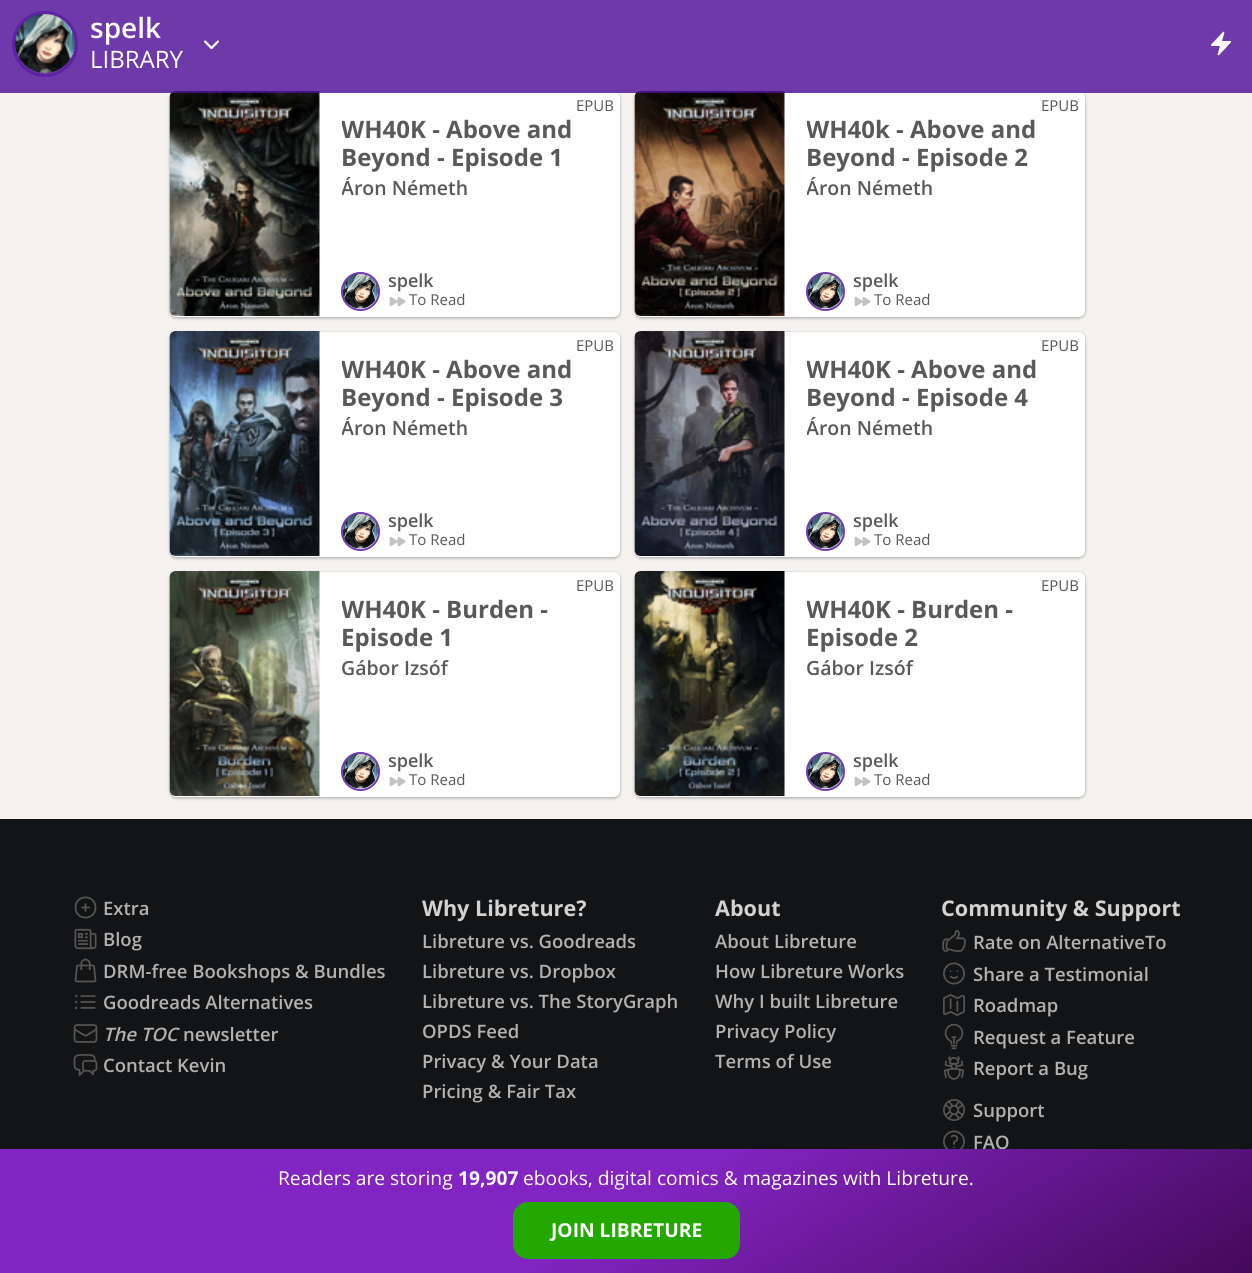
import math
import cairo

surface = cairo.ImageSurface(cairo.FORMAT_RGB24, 1252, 1273)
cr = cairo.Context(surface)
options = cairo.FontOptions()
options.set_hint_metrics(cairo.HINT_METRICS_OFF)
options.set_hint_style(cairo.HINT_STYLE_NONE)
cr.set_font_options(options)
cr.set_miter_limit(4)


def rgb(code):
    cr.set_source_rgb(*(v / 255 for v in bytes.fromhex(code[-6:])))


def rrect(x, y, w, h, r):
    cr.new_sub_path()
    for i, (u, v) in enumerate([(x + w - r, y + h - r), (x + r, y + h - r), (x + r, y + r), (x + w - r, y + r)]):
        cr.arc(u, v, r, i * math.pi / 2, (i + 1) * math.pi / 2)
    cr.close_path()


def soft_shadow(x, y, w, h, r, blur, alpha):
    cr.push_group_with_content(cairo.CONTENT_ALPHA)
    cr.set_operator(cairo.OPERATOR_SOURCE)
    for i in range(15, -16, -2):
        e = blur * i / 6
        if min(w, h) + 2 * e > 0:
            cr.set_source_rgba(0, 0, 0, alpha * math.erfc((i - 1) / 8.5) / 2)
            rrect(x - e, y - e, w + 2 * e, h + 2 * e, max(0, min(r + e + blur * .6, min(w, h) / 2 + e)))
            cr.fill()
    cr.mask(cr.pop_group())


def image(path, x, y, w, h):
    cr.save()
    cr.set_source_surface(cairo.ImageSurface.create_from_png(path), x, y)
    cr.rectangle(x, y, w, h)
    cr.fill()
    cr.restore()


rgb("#f5f2f0")
cr.paint()
rgb("#000000")
soft_shadow(170, 93, 450, 225, 6, 1.5, 0.24)
soft_shadow(170, 93, 450, 225, 6, 2, 0.12)
rgb("#ffffff")
rrect(170, 92, 450, 225, 6)
cr.fill()
image("img/4.png", 169, 91, 151, 225)
rgb("#000000")
soft_shadow(635, 93, 450, 225, 6, 1.5, 0.24)
soft_shadow(635, 93, 450, 225, 6, 2, 0.12)
rgb("#ffffff")
rrect(635, 92, 450, 225, 6)
cr.fill()
image("img/7.png", 634, 91, 151, 225)
cr.set_source_rgba(0.318, 0.071, 0.608, 0.82)
cr.rectangle(0, 0, 1252, 93)
cr.fill()
image("img/1.png", 15, 14, 60, 59)
cr.arc(45, 44, 31.5, 0, 2 * math.pi)
rgb("#5d21a4")
cr.set_line_width(3)
cr.stroke()
image("img/2.png", 204, 40, 15, 10)
image("img/3.png", 1210, 31, 22, 25)
image("img/5.png", 342, 272, 36, 37)
cr.arc(360.5, 291.5, 18.5, 0, 2 * math.pi)
rgb("#713dae")
cr.set_line_width(2)
cr.stroke()
image("img/6.png", 389, 296, 17, 11)
image("img/8.png", 807, 272, 36, 37)
cr.arc(825.5, 291.5, 18.5, 0, 2 * math.pi)
cr.stroke()
image("img/6.png", 854, 296, 17, 11)
rgb("#000000")
soft_shadow(170, 333, 450, 225, 6, 1.5, 0.24)
soft_shadow(170, 333, 450, 225, 6, 2, 0.12)
rgb("#ffffff")
rrect(170, 332, 450, 225, 6)
cr.fill()
image("img/9.png", 169, 331, 151, 225)
image("img/5.png", 342, 512, 36, 37)
cr.arc(360.5, 531.5, 18.5, 0, 2 * math.pi)
rgb("#713dae")
cr.stroke()
image("img/6.png", 389, 536, 17, 11)
rgb("#000000")
soft_shadow(635, 333, 450, 225, 6, 1.5, 0.24)
soft_shadow(635, 333, 450, 225, 6, 2, 0.12)
rgb("#ffffff")
rrect(635, 332, 450, 225, 6)
cr.fill()
image("img/10.png", 634, 331, 151, 225)
image("img/8.png", 807, 512, 36, 37)
cr.arc(825.5, 531.5, 18.5, 0, 2 * math.pi)
rgb("#713dae")
cr.stroke()
image("img/6.png", 854, 536, 17, 11)
rgb("#000000")
soft_shadow(170, 573, 450, 225, 6, 1.5, 0.24)
soft_shadow(170, 573, 450, 225, 6, 2, 0.12)
rgb("#ffffff")
rrect(170, 572, 450, 225, 6)
cr.fill()
image("img/11.png", 169, 571, 151, 225)
image("img/5.png", 342, 752, 36, 37)
cr.arc(360.5, 771.5, 18.5, 0, 2 * math.pi)
rgb("#713dae")
cr.stroke()
image("img/6.png", 389, 776, 17, 11)
rgb("#000000")
soft_shadow(635, 573, 450, 225, 6, 1.5, 0.24)
soft_shadow(635, 573, 450, 225, 6, 2, 0.12)
rgb("#ffffff")
rrect(635, 572, 450, 225, 6)
cr.fill()
image("img/12.png", 634, 571, 151, 225)
image("img/8.png", 807, 752, 36, 37)
cr.arc(825.5, 771.5, 18.5, 0, 2 * math.pi)
rgb("#713dae")
cr.stroke()
image("img/6.png", 854, 776, 17, 11)
rgb("#131416")
cr.rectangle(0, 819, 1252, 330)
cr.fill()
cr.new_path()
cr.move_to(85.5, 904)
cr.line_to(85.5, 911)
cr.move_to(89, 907.5)
cr.line_to(82, 907.5)
cr.move_to(95.5, 907.5)
cr.curve_to(95.5, 921, 75.5, 921, 75.5, 907.5)
cr.curve_to(75.5, 894, 95.5, 894, 95.5, 907.5)
cr.close_path()
rgb("#555656")
cr.set_line_width(1.7)
cr.set_line_cap(cairo.LINE_CAP_ROUND)
cr.set_line_join(cairo.LINE_JOIN_ROUND)
cr.stroke()
image("img/13.png", 74, 928, 23, 22)
image("img/14.png", 74, 958, 23, 25)
image("img/15.png", 75, 994, 21, 16)
image("img/16.png", 73, 1024, 25, 19)
image("img/17.png", 73, 1054, 25, 22)
image("img/18.png", 942, 930, 24, 22)
image("img/19.png", 943, 962, 22, 23)
image("img/20.png", 943, 994, 22, 22)
image("img/21.png", 944, 1023, 20, 27)
image("img/22.png", 944, 1056, 20, 24)
image("img/23.png", 943, 1099, 22, 22)
image("img/24.png", 943, 1130, 22, 19)
cr.select_font_face("Open Sans SemiBold")
cr.set_font_size(28)
rgb("#ffffff")
cr.move_to(90, 38)
cr.show_text("spelk")
cr.select_font_face("Open Sans")
cr.set_font_size(24)
cr.move_to(90, 68)
cr.show_text("LIBRARY")
cr.set_font_size(15)
rgb("#595959")
cr.move_to(576, 111)
cr.show_text("EPUB")
cr.save()
cr.rectangle(342, 116, 278, 61)
cr.clip()
cr.select_font_face("Open Sans", cairo.FONT_SLANT_NORMAL, cairo.FONT_WEIGHT_BOLD)
cr.set_font_size(24)
cr.move_to(341, 138)
cr.show_text("WH40K - Above and")
cr.restore()
cr.select_font_face("Open Sans", cairo.FONT_SLANT_NORMAL, cairo.FONT_WEIGHT_BOLD)
cr.set_font_size(24)
cr.move_to(341, 166)
cr.show_text("Beyond - Episode 1")
cr.save()
cr.rectangle(342, 177, 278, 23)
cr.clip()
cr.select_font_face("Open Sans SemiBold")
cr.set_font_size(19.5)
cr.move_to(341, 195)
cr.show_text("Áron Németh")
cr.restore()
cr.select_font_face("Open Sans SemiBold")
cr.set_font_size(18)
cr.move_to(388, 287)
cr.show_text("spelk")
cr.select_font_face("Open Sans")
cr.set_font_size(15)
cr.move_to(409, 305)
cr.show_text("To Read")
cr.move_to(1041, 111)
cr.show_text("EPUB")
cr.save()
cr.rectangle(807, 116, 278, 61)
cr.clip()
cr.select_font_face("Open Sans", cairo.FONT_SLANT_NORMAL, cairo.FONT_WEIGHT_BOLD)
cr.set_font_size(24)
cr.move_to(806, 138)
cr.show_text("WH40k - Above and")
cr.restore()
cr.select_font_face("Open Sans", cairo.FONT_SLANT_NORMAL, cairo.FONT_WEIGHT_BOLD)
cr.set_font_size(24)
cr.move_to(806, 166)
cr.show_text("Beyond - Episode 2")
cr.save()
cr.rectangle(807, 177, 278, 23)
cr.clip()
cr.select_font_face("Open Sans SemiBold")
cr.set_font_size(19.5)
cr.move_to(806, 195)
cr.show_text("Áron Németh")
cr.restore()
cr.select_font_face("Open Sans SemiBold")
cr.set_font_size(18)
cr.move_to(853, 287)
cr.show_text("spelk")
cr.select_font_face("Open Sans")
cr.set_font_size(15)
cr.move_to(874, 305)
cr.show_text("To Read")
cr.move_to(576, 351)
cr.show_text("EPUB")
cr.save()
cr.rectangle(342, 356, 278, 61)
cr.clip()
cr.select_font_face("Open Sans", cairo.FONT_SLANT_NORMAL, cairo.FONT_WEIGHT_BOLD)
cr.set_font_size(24)
cr.move_to(341, 378)
cr.show_text("WH40K - Above and")
cr.restore()
cr.select_font_face("Open Sans", cairo.FONT_SLANT_NORMAL, cairo.FONT_WEIGHT_BOLD)
cr.set_font_size(24)
cr.move_to(341, 406)
cr.show_text("Beyond - Episode 3")
cr.save()
cr.rectangle(342, 417, 278, 23)
cr.clip()
cr.select_font_face("Open Sans SemiBold")
cr.set_font_size(19.5)
cr.move_to(341, 435)
cr.show_text("Áron Németh")
cr.restore()
cr.select_font_face("Open Sans SemiBold")
cr.set_font_size(18)
cr.move_to(388, 527)
cr.show_text("spelk")
cr.select_font_face("Open Sans")
cr.set_font_size(15)
cr.move_to(409, 545)
cr.show_text("To Read")
cr.move_to(1041, 351)
cr.show_text("EPUB")
cr.save()
cr.rectangle(807, 356, 278, 61)
cr.clip()
cr.select_font_face("Open Sans", cairo.FONT_SLANT_NORMAL, cairo.FONT_WEIGHT_BOLD)
cr.set_font_size(24)
cr.move_to(806, 378)
cr.show_text("WH40K - Above and")
cr.restore()
cr.select_font_face("Open Sans", cairo.FONT_SLANT_NORMAL, cairo.FONT_WEIGHT_BOLD)
cr.set_font_size(24)
cr.move_to(806, 406)
cr.show_text("Beyond - Episode 4")
cr.save()
cr.rectangle(807, 417, 278, 23)
cr.clip()
cr.select_font_face("Open Sans SemiBold")
cr.set_font_size(19.5)
cr.move_to(806, 435)
cr.show_text("Áron Németh")
cr.restore()
cr.select_font_face("Open Sans SemiBold")
cr.set_font_size(18)
cr.move_to(853, 527)
cr.show_text("spelk")
cr.select_font_face("Open Sans")
cr.set_font_size(15)
cr.move_to(874, 545)
cr.show_text("To Read")
cr.move_to(576, 591)
cr.show_text("EPUB")
cr.save()
cr.rectangle(342, 596, 278, 61)
cr.clip()
cr.select_font_face("Open Sans", cairo.FONT_SLANT_NORMAL, cairo.FONT_WEIGHT_BOLD)
cr.set_font_size(24)
cr.move_to(341, 618)
cr.show_text("WH40K - Burden -")
cr.restore()
cr.select_font_face("Open Sans", cairo.FONT_SLANT_NORMAL, cairo.FONT_WEIGHT_BOLD)
cr.set_font_size(24)
cr.move_to(341, 646)
cr.show_text("Episode 1")
cr.select_font_face("Open Sans SemiBold")
cr.set_font_size(19.5)
cr.move_to(341, 675)
cr.show_text("Gábor Izsóf")
cr.set_font_size(18)
cr.move_to(388, 767)
cr.show_text("spelk")
cr.select_font_face("Open Sans")
cr.set_font_size(15)
cr.move_to(409, 785)
cr.show_text("To Read")
cr.move_to(1041, 591)
cr.show_text("EPUB")
cr.save()
cr.rectangle(807, 596, 278, 61)
cr.clip()
cr.select_font_face("Open Sans", cairo.FONT_SLANT_NORMAL, cairo.FONT_WEIGHT_BOLD)
cr.set_font_size(24)
cr.move_to(806, 618)
cr.show_text("WH40K - Burden -")
cr.restore()
cr.select_font_face("Open Sans", cairo.FONT_SLANT_NORMAL, cairo.FONT_WEIGHT_BOLD)
cr.set_font_size(24)
cr.move_to(806, 646)
cr.show_text("Episode 2")
cr.select_font_face("Open Sans SemiBold")
cr.set_font_size(19.5)
cr.move_to(806, 675)
cr.show_text("Gábor Izsóf")
cr.set_font_size(18)
cr.move_to(853, 767)
cr.show_text("spelk")
cr.select_font_face("Open Sans")
cr.set_font_size(15)
cr.move_to(874, 785)
cr.show_text("To Read")
cr.select_font_face("Open Sans SemiBold")
cr.set_font_size(18.5)
rgb("#b2b2b2")
for x, y, s in [
    (103, 915, "Extra"),
    (103, 946, "Blog"),
    (103, 978, "DRM-free Bookshops & Bundles"),
    (103, 1009, "Goodreads Alternatives"),
]:
    cr.move_to(x, y)
    cr.show_text(s)
cr.select_font_face("Open Sans SemiBold", cairo.FONT_SLANT_ITALIC)
cr.move_to(103, 1041)
cr.show_text("The TOC")
cr.select_font_face("Open Sans SemiBold")
cr.move_to(183, 1041)
cr.show_text("newsletter")
cr.move_to(103, 1072)
cr.show_text("Contact Kevin")
cr.select_font_face("Open Sans", cairo.FONT_SLANT_NORMAL, cairo.FONT_WEIGHT_BOLD)
cr.set_font_size(21.6)
rgb("#d2d2d2")
cr.move_to(422, 916)
cr.show_text("Why Libreture?")
cr.select_font_face("Open Sans SemiBold")
cr.set_font_size(18.5)
rgb("#b2b2b2")
for x, y, s in [
    (422, 948, "Libreture vs. Goodreads"),
    (422, 978, "Libreture vs. Dropbox"),
    (422, 1008, "Libreture vs. The StoryGraph"),
    (422, 1038, "OPDS Feed"),
    (422, 1068, "Privacy & Your Data"),
    (422, 1098, "Pricing & Fair Tax"),
]:
    cr.move_to(x, y)
    cr.show_text(s)
cr.select_font_face("Open Sans", cairo.FONT_SLANT_NORMAL, cairo.FONT_WEIGHT_BOLD)
cr.set_font_size(21.6)
rgb("#d2d2d2")
cr.move_to(715, 916)
cr.show_text("About")
cr.select_font_face("Open Sans SemiBold")
cr.set_font_size(18.5)
rgb("#b2b2b2")
for x, y, s in [
    (715, 948, "About Libreture"),
    (715, 978, "How Libreture Works"),
    (715, 1008, "Why I built Libreture"),
    (715, 1038, "Privacy Policy"),
    (715, 1068, "Terms of Use"),
]:
    cr.move_to(x, y)
    cr.show_text(s)
cr.select_font_face("Open Sans", cairo.FONT_SLANT_NORMAL, cairo.FONT_WEIGHT_BOLD)
cr.set_font_size(21.6)
rgb("#d2d2d2")
cr.move_to(941, 916)
cr.show_text("Community & Support")
cr.select_font_face("Open Sans SemiBold")
cr.set_font_size(18.5)
rgb("#b2b2b2")
for x, y, s in [
    (973, 949, "Rate on AlternativeTo"),
    (973, 981, "Share a Testimonial"),
    (973, 1012, "Roadmap"),
    (973, 1044, "Request a Feature"),
    (973, 1075, "Report a Bug"),
    (973, 1117, "Support"),
    (973, 1149, "FAQ"),
]:
    cr.move_to(x, y)
    cr.show_text(s)
gradient = cairo.LinearGradient(443, 893, 810, 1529)
gradient.add_color_stop_rgba(0.5, 0.51, 0.141, 0.757, 1)
gradient.add_color_stop_rgba(1, 0.267, 0.035, 0.349, 1)
cr.set_source(gradient)
cr.rectangle(0, 1149, 1252, 124)
cr.fill()
rgb("#24a800")
rrect(513, 1202, 227, 57, 15)
cr.fill()
cr.select_font_face("Open Sans", cairo.FONT_SLANT_NORMAL, cairo.FONT_WEIGHT_BOLD)
cr.set_font_size(19.2)
rgb("#ffffff")
cr.move_to(551, 1237)
cr.show_text("JOIN LIBRETURE")
cr.select_font_face("Open Sans")
cr.move_to(523, 1185)
cr.show_text("ebooks, digital comics & magazines with Libreture.")
cr.select_font_face("Open Sans", cairo.FONT_SLANT_NORMAL, cairo.FONT_WEIGHT_BOLD)
cr.move_to(458, 1185)
cr.show_text("19,907")
cr.select_font_face("Open Sans")
cr.move_to(278, 1185)
cr.show_text("Readers are storing")
surface.write_to_png("page.png")
